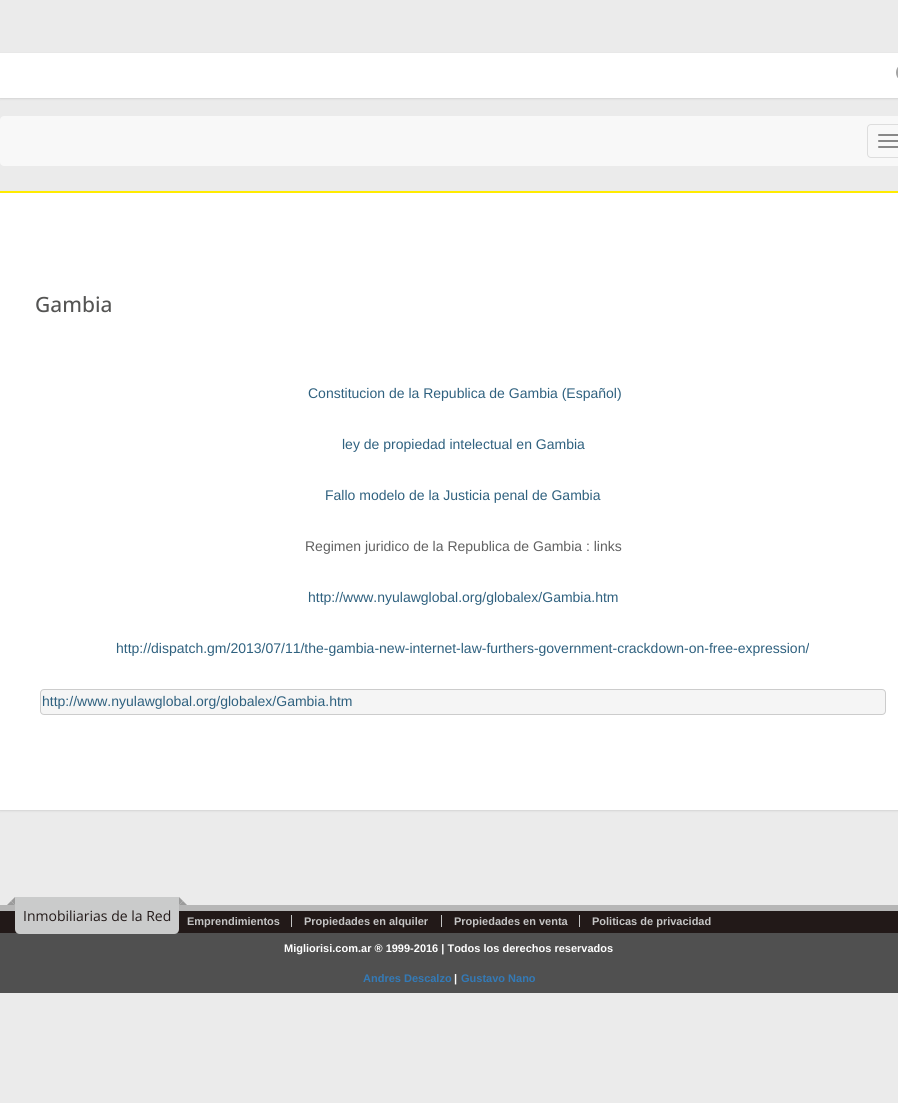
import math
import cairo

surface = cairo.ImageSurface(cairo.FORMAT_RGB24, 898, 1103)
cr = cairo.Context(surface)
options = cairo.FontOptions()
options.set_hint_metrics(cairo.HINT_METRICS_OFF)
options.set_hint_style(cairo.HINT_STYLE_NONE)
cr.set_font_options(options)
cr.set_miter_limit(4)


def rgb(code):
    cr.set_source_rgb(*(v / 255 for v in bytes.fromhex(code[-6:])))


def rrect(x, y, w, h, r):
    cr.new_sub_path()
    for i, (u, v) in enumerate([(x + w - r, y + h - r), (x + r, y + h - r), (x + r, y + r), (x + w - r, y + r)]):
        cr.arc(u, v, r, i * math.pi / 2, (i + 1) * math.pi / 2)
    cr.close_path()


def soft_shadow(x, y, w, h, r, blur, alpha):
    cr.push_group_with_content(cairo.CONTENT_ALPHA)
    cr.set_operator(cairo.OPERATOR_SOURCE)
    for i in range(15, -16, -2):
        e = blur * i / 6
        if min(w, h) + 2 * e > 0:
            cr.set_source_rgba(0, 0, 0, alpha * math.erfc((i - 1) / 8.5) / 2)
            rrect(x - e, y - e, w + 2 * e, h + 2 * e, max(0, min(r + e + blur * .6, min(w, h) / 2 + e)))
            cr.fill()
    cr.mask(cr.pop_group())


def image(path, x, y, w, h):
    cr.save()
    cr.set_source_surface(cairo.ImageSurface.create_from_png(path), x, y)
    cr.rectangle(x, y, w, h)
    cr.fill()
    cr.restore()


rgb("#ebebeb")
cr.paint()
rgb("#000000")
soft_shadow(0, 54, 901, 45, 0, 1, 0.1)
rgb("#ffffff")
cr.rectangle(0, 53, 898, 45)
cr.fill()
image("img/1.png", 896, 67, 2, 11)
rgb("#f8f8f8")
rrect(0, 116, 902, 50, 4)
cr.fill()
rrect(867.5, 124.5, 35, 33, 3.5)
rgb("#dddddd")
cr.set_line_width(1)
cr.stroke()
rgb("#888888")
rrect(878, 134, 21, 2, 1)
cr.fill()
rrect(878, 140, 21, 2, 1)
cr.fill()
rrect(878, 146, 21, 2, 1)
cr.fill()
rgb("#000000")
soft_shadow(0, 192, 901, 619, 0, 1, 0.1)
rgb("#ffffff")
cr.rectangle(0, 193, 898, 617)
cr.fill()
rgb("#ffeb00")
cr.rectangle(0, 191, 898, 2)
cr.fill()
rgb("#f5f5f5")
rrect(40.5, 689.5, 845, 25, 3.5)
cr.fill_preserve()
rgb("#cccccc")
cr.stroke()
for x, y, w, h, color in [
    (0, 905, 898, 6, "#b6b6b6"),
    (0, 911, 898, 22, "#221918"),
    (0, 933, 898, 60, "#505050"),
]:
    rgb(color)
    cr.rectangle(x, y, w, h)
    cr.fill()
rgb("#cacbcb")
cr.new_path()
cr.move_to(15, 897)
cr.line_to(179, 897)
cr.line_to(179, 929)
cr.curve_to(179, 932, 177, 934, 174, 934)
cr.line_to(20, 934)
cr.curve_to(17, 934, 15, 932, 15, 929)
cr.close_path()
cr.fill()
rgb("#9b9b9b")
cr.new_path()
cr.move_to(15, 897)
cr.line_to(15, 905)
cr.line_to(11, 901)
cr.close_path()
cr.fill()
cr.new_path()
cr.move_to(15, 905)
cr.line_to(7, 905)
cr.line_to(11, 901)
cr.close_path()
cr.fill()
cr.new_path()
cr.move_to(187, 905)
cr.line_to(179, 905)
cr.line_to(183, 901)
cr.close_path()
cr.fill()
cr.new_path()
cr.move_to(179, 905)
cr.line_to(179, 897)
cr.line_to(183, 901)
cr.close_path()
cr.fill()
for x, y, w, h, color in [
    (291, 915, 1, 12, "#c5c5c5"),
    (441, 915, 1, 12, "#c5c5c5"),
    (579, 915, 1, 12, "#c5c5c5"),
]:
    rgb(color)
    cr.rectangle(x, y, w, h)
    cr.fill()
cr.select_font_face("Open Sans Medium")
cr.set_font_size(21)
rgb("#545453")
cr.move_to(35, 312)
cr.show_text("Gambia")
cr.select_font_face("Liberation Sans")
cr.set_font_size(14)
rgb("#2f617f")
for x, y, s in [
    (308, 398, "Constitucion de la Republica de Gambia (Español)"),
    (342, 449, "ley de propiedad intelectual en Gambia"),
    (325, 500, "Fallo modelo de la Justicia penal de Gambia"),
]:
    cr.move_to(x, y)
    cr.show_text(s)
rgb("#616161")
cr.move_to(305, 551)
cr.show_text("Regimen juridico de la Republica de Gambia : links")
rgb("#2f617f")
for x, y, s in [
    (308, 602, "http://www.nyulawglobal.org/globalex/Gambia.htm"),
    (116, 653, "http://dispatch.gm/2013/07/11/the-gambia-new-internet-law-furthers-government-crackdown-on-free-expression/"),
    (42, 706, "http://www.nyulawglobal.org/globalex/Gambia.htm"),
]:
    cr.move_to(x, y)
    cr.show_text(s)
cr.select_font_face("Open Sans")
rgb("#221918")
cr.move_to(23, 921)
cr.show_text("Inmobiliarias de la Red")
cr.select_font_face("Liberation Sans", cairo.FONT_SLANT_NORMAL, cairo.FONT_WEIGHT_BOLD)
cr.set_font_size(11)
rgb("#c5c5c5")
for x, y, s in [
    (187, 925, "Emprendimientos"),
    (304, 925, "Propiedades en alquiler"),
    (454, 925, "Propiedades en venta"),
    (592, 925, "Politicas de privacidad"),
]:
    cr.move_to(x, y)
    cr.show_text(s)
rgb("#ffffff")
cr.move_to(284, 952)
cr.show_text("Migliorisi.com.ar ® 1999-2016 | Todos los derechos reservados")
rgb("#337ab7")
cr.move_to(363, 982)
cr.show_text("Andres Descalzo")
rgb("#ffffff")
cr.move_to(454, 982)
cr.show_text("|")
rgb("#337ab7")
cr.move_to(461, 982)
cr.show_text("Gustavo Nano")
surface.write_to_png("page.png")
